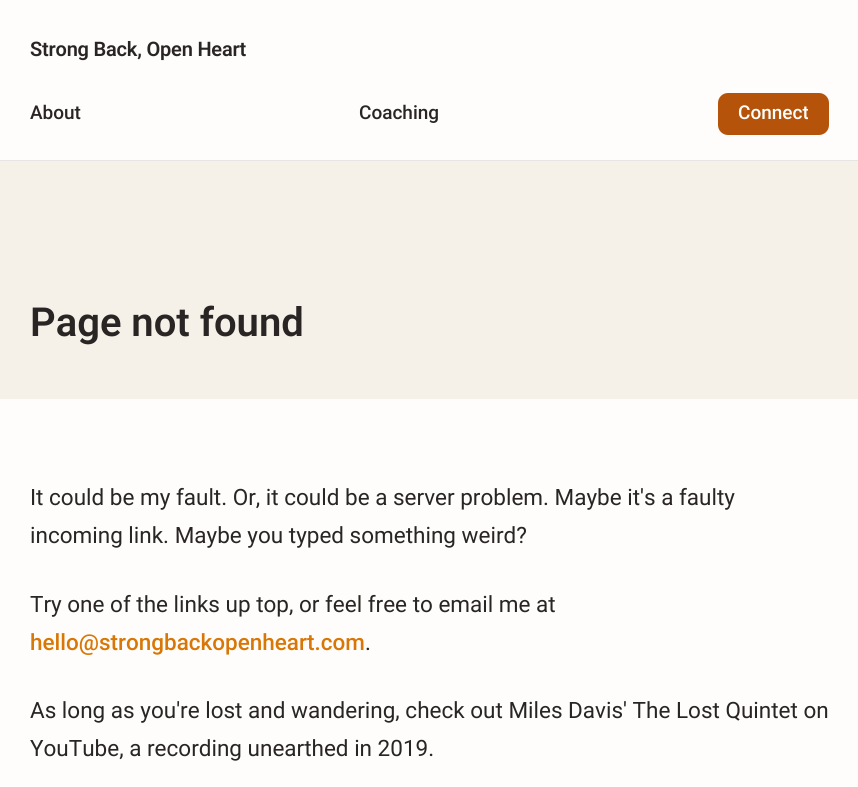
import math
import cairo

surface = cairo.ImageSurface(cairo.FORMAT_RGB24, 858, 787)
cr = cairo.Context(surface)
options = cairo.FontOptions()
options.set_hint_metrics(cairo.HINT_METRICS_OFF)
options.set_hint_style(cairo.HINT_STYLE_NONE)
cr.set_font_options(options)
cr.set_miter_limit(4)


def rgb(code):
    cr.set_source_rgb(*(v / 255 for v in bytes.fromhex(code[-6:])))


def tracked(x, y, s, letter, word):
    cr.move_to(x, y)
    for ch in s:
        cr.show_text(ch)
        cr.rel_move_to(letter + word * (ch == ' '), 0)


def rrect(x, y, w, h, r):
    cr.new_sub_path()
    for i, (u, v) in enumerate([(x + w - r, y + h - r), (x + r, y + h - r), (x + r, y + r), (x + w - r, y + r)]):
        cr.arc(u, v, r, i * math.pi / 2, (i + 1) * math.pi / 2)
    cr.close_path()


rgb("#fefdfb")
cr.paint()
rgb("#e7e5e4")
cr.rectangle(0, 160, 858, 1)
cr.fill()
rgb("#b45309")
rrect(718, 93, 111, 42, 10)
cr.fill()
rgb("#f5f1e8")
cr.rectangle(0, 161, 858, 238)
cr.fill()
cr.select_font_face("Roboto SemiBold")
cr.set_font_size(20)
rgb("#292524")
tracked(30, 56, "Strong Back, Open Heart", -0.2, 0)
cr.select_font_face("Roboto Medium")
cr.set_font_size(19)
cr.move_to(30, 119)
cr.show_text("About")
cr.move_to(359, 119)
cr.show_text("Coaching")
rgb("#ffffff")
cr.move_to(738, 119)
cr.show_text("Connect")
cr.select_font_face("Roboto SemiBold")
cr.set_font_size(40)
rgb("#292524")
cr.move_to(30, 336)
cr.show_text("Page not found")
cr.select_font_face("Roboto")
cr.set_font_size(22.5)
for x, y, s in [
    (30, 505, "It could be my fault. Or, it could be a server problem. Maybe it's a faulty"),
    (30, 543, "incoming link. Maybe you typed something weird?"),
    (30, 612, "Try one of the links up top, or feel free to email me at"),
]:
    cr.move_to(x, y)
    cr.show_text(s)
cr.select_font_face("Roboto Medium")
rgb("#d97706")
cr.move_to(30, 650)
cr.show_text("hello@strongbackopenheart.com")
cr.select_font_face("Roboto")
rgb("#292524")
for x, y, s in [
    (365, 650, "."),
    (30, 718, "As long as you're lost and wandering, check out Miles Davis' The Lost Quintet on"),
    (30, 756, "YouTube, a recording unearthed in 2019."),
]:
    cr.move_to(x, y)
    cr.show_text(s)
surface.write_to_png("page.png")
